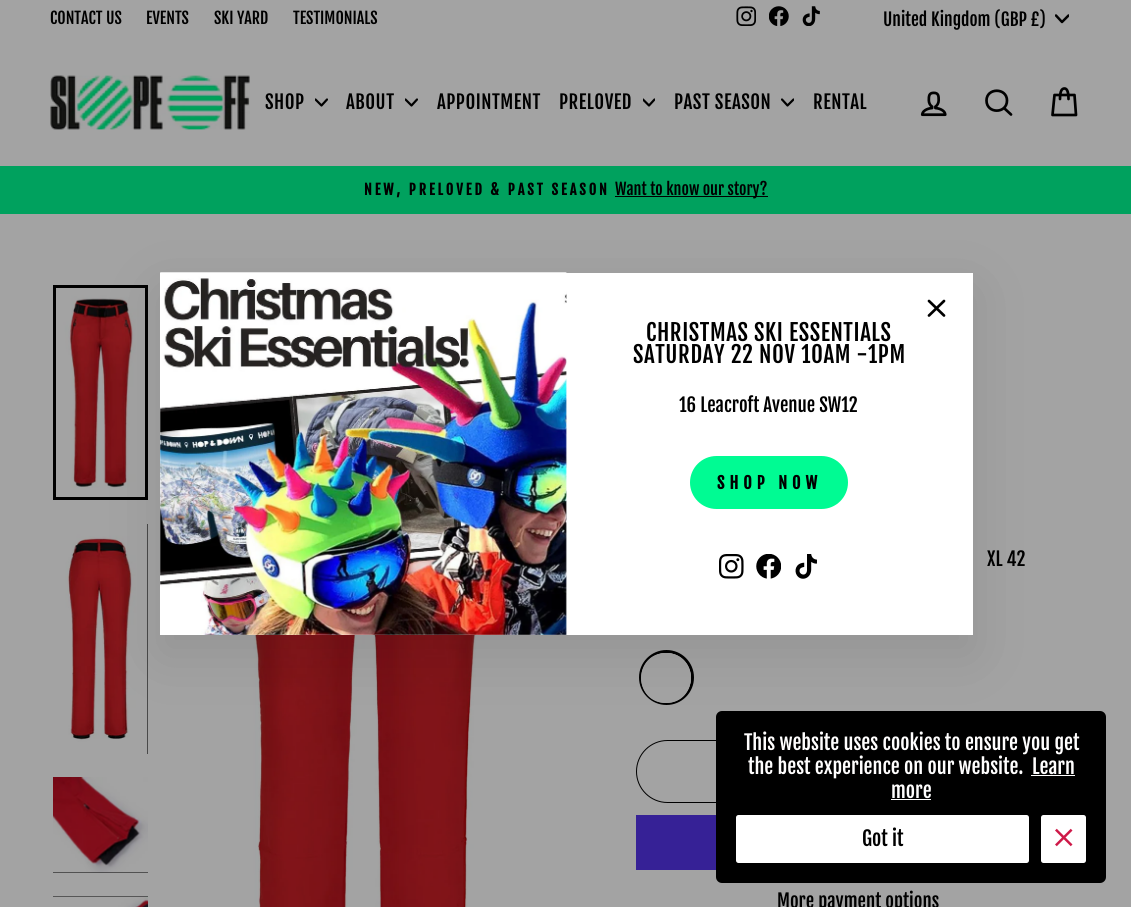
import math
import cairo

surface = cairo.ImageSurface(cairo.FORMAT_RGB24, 1131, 907)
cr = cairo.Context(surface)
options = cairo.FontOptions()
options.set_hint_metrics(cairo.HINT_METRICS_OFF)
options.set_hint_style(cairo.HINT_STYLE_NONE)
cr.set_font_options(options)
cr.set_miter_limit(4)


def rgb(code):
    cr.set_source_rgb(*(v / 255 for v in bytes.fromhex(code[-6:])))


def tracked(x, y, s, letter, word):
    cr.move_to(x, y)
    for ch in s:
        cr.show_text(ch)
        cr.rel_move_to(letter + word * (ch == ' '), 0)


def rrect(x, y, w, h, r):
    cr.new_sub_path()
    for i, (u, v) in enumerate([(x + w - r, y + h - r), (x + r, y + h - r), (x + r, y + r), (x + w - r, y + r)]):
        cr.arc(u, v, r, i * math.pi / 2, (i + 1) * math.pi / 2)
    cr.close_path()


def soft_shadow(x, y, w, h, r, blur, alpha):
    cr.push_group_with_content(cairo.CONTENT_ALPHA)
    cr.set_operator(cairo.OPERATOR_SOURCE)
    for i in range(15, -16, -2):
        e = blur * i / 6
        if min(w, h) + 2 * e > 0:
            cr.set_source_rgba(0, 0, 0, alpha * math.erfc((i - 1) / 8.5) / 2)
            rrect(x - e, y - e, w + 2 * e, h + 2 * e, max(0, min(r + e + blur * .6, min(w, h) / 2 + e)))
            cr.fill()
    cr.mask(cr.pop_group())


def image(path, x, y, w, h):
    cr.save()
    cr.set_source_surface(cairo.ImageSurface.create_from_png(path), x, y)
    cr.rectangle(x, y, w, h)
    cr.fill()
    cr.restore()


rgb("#a3a3a3")
cr.paint()
image("img/1.png", 736, 6, 20, 20)
image("img/2.png", 769, 6, 20, 20)
image("img/3.png", 802, 6, 18, 20)
cr.save()
cr.rectangle(1055, 13, 14, 13)
cr.clip()
cr.new_path()
cr.move_to(1056, 15.5)
cr.line_to(1062, 22)
cr.line_to(1068.5, 15.5)
rgb("#000000")
cr.set_line_width(2.5)
cr.set_line_cap(cairo.LINE_CAP_ROUND)
cr.set_line_join(cairo.LINE_JOIN_ROUND)
cr.stroke()
cr.restore()
image("img/4.png", 50, 75, 200, 55)
cr.save()
cr.rectangle(315, 96, 13, 13)
cr.clip()
cr.new_path()
cr.move_to(315.5, 99.5)
cr.line_to(321.5, 105.5)
cr.line_to(327, 99.5)
rgb("#000000")
cr.set_line_width(2.2)
cr.set_line_cap(cairo.LINE_CAP_ROUND)
cr.set_line_join(cairo.LINE_JOIN_ROUND)
cr.stroke()
cr.restore()
cr.save()
cr.rectangle(405, 96, 13, 13)
cr.clip()
cr.new_path()
cr.move_to(405.5, 99.5)
cr.line_to(411.5, 105.5)
cr.line_to(417, 99.5)
rgb("#000000")
cr.set_line_width(2.2)
cr.set_line_cap(cairo.LINE_CAP_ROUND)
cr.set_line_join(cairo.LINE_JOIN_ROUND)
cr.stroke()
cr.restore()
cr.save()
cr.rectangle(643, 96, 12, 13)
cr.clip()
cr.new_path()
cr.move_to(643, 99.5)
cr.line_to(649, 105.5)
cr.line_to(654.5, 99.5)
rgb("#000000")
cr.set_line_width(2.2)
cr.set_line_cap(cairo.LINE_CAP_ROUND)
cr.set_line_join(cairo.LINE_JOIN_ROUND)
cr.stroke()
cr.restore()
cr.save()
cr.rectangle(781, 96, 13, 13)
cr.clip()
cr.new_path()
cr.move_to(782, 99.5)
cr.line_to(787.5, 105.5)
cr.line_to(793.5, 99.5)
rgb("#000000")
cr.set_line_width(2.2)
cr.set_line_cap(cairo.LINE_CAP_ROUND)
cr.set_line_join(cairo.LINE_JOIN_ROUND)
cr.stroke()
cr.restore()
image("img/5.png", 920, 91, 27, 26)
cr.new_path()
cr.move_to(1007, 100.5)
cr.curve_to(1007, 114, 986.5, 114, 986.5, 100.5)
cr.curve_to(986.5, 87.5, 1007, 87.5, 1007, 100.5)
cr.close_path()
cr.move_to(1011, 114.5)
cr.line_to(1004, 108)
rgb("#000000")
cr.set_line_width(2.7)
cr.set_line_cap(cairo.LINE_CAP_ROUND)
cr.set_line_join(cairo.LINE_JOIN_ROUND)
cr.stroke()
cr.new_path()
cr.move_to(1060, 99)
cr.curve_to(1060, 90.5, 1062, 88.5, 1064.5, 88.5)
cr.curve_to(1066.5, 88.5, 1068.5, 90.5, 1068.5, 99)
cr.move_to(1054.5, 95)
cr.line_to(1074.5, 95)
cr.line_to(1076, 115)
cr.line_to(1052.5, 115)
cr.close_path()
cr.stroke()
rgb("#00a15e")
cr.rectangle(0, 166, 1131, 48)
cr.fill()
rgb("#000000")
cr.rectangle(615, 196, 153, 1)
cr.fill()
image("img/10.png", 56, 288, 89, 209)
cr.rectangle(54.5, 286.5, 92, 212)
cr.set_line_width(3)
cr.set_line_cap(cairo.LINE_CAP_BUTT)
cr.set_line_join(cairo.LINE_JOIN_MITER)
cr.stroke()
cr.rectangle(147, 524, 1, 230)
cr.fill()
image("img/11.png", 53, 524, 95, 230)
image("img/14.png", 169, 635, 383, 272)
cr.arc(666.5, 677.5, 26, 0, 2 * math.pi)
cr.stroke()
rgb("#a3a3a3")
cr.arc(666, 678, 25, 0, 2 * math.pi)
cr.fill()
cr.set_fill_rule(cairo.FILL_RULE_EVEN_ODD)
cr.new_path()
cr.move_to(666, 653)
cr.curve_to(633, 653, 633, 703, 666, 703)
cr.curve_to(699, 703, 699, 653, 666, 653)
cr.close_path()
cr.move_to(666, 656)
cr.curve_to(638, 656, 638, 699, 666, 699)
cr.curve_to(695, 699, 695, 656, 666, 656)
cr.close_path()
cr.fill()
rgb("#000000")
soft_shadow(160, 291, 813, 363, 0, 28, 0.1)
rgb("#ffffff")
cr.rectangle(160, 273, 813, 362)
cr.fill()
cr.new_path()
cr.move_to(929, 301)
cr.line_to(944, 315.5)
cr.move_to(944, 301)
cr.line_to(929, 315.5)
rgb("#000000")
cr.set_line_width(2.7)
cr.set_line_cap(cairo.LINE_CAP_ROUND)
cr.set_line_join(cairo.LINE_JOIN_ROUND)
cr.stroke()
image("img/6.png", 160, 272, 407, 363)
rgb("#00fb93")
rrect(690, 456, 158, 53, 26.5)
cr.fill()
image("img/7.png", 719, 554, 25, 25)
image("img/8.png", 756, 554, 25, 25)
image("img/9.png", 795, 554, 22, 25)
rgb("#000000")
cr.rectangle(53, 872, 95, 1)
cr.fill()
image("img/12.png", 53, 777, 95, 96)
cr.rectangle(53, 896, 95, 1)
cr.fill()
image("img/13.png", 53, 896, 95, 11)
rrect(636.5, 740.5, 444, 62, 31)
cr.set_line_width(1)
cr.set_line_cap(cairo.LINE_CAP_BUTT)
cr.set_line_join(cairo.LINE_JOIN_MITER)
cr.stroke()
rgb("#362196")
cr.rectangle(636, 815, 80, 55)
cr.fill()
rgb("#000000")
rrect(716, 711, 390, 172, 6)
cr.fill()
rgb("#fffefe")
cr.rectangle(1031, 775, 44, 1)
cr.fill()
cr.rectangle(891, 799, 40, 1)
cr.fill()
rgb("#ffffff")
rrect(736, 815, 293, 48, 2.5)
cr.fill()
rrect(1041, 815, 45, 48, 2.5)
cr.fill()
image("img/15.png", 1055, 828, 18, 19)
cr.select_font_face("Fjalla One")
cr.set_font_size(16)
rgb("#000000")
for x, y, s in [
    (50, 24, "CONTACT US"),
    (146, 24, "EVENTS"),
    (214, 24, "SKI YARD"),
    (293, 24, "TESTIMONIALS"),
]:
    cr.move_to(x, y)
    cr.show_text(s)
cr.set_font_size(17.5)
cr.move_to(883, 26)
cr.show_text("United Kingdom (GBP £)")
cr.set_font_size(18.75)
for x, y, s in [
    (265, 109, "SHOP"),
    (346, 109, "ABOUT"),
    (437, 109, "APPOINTMENT"),
    (559, 109, "PRELOVED"),
    (674, 109, "PAST SEASON"),
    (813, 109, "RENTAL"),
]:
    tracked(x, y, s, 0.5, 0)
cr.select_font_face("Fjalla One", cairo.FONT_SLANT_NORMAL, cairo.FONT_WEIGHT_BOLD)
cr.set_font_size(14.3)
tracked(364, 195, "NEW, PRELOVED & PAST SEASON", 2.9, 0)
cr.select_font_face("Fjalla One")
cr.set_font_size(16)
cr.move_to(615, 195)
cr.show_text("Want to know our story?")
cr.set_font_size(22.75)
tracked(646, 341, "CHRISTMAS SKI ESSENTIALS", 0.6, 0)
tracked(633, 363, "SATURDAY 22 NOV 1OAM -1PM", 0.6, 0)
cr.set_font_size(18.75)
cr.move_to(679, 412)
cr.show_text("16 Leacroft Avenue SW12")
cr.select_font_face("Fjalla One", cairo.FONT_SLANT_NORMAL, cairo.FONT_WEIGHT_BOLD)
cr.set_font_size(16.25)
tracked(717, 489, "SHOP NOW", 5, 0)
cr.select_font_face("Fjalla One")
cr.set_font_size(18.75)
cr.move_to(987, 566)
cr.show_text("XL 42")
cr.move_to(777, 908)
cr.show_text("More payment options")
cr.set_font_size(20)
rgb("#fffefe")
for x, y, s in [
    (744, 750, "This website uses cookies to ensure you get"),
    (748, 774, "the best experience on our website."),
    (1032, 774, "Learn"),
    (891, 798, "more"),
]:
    cr.move_to(x, y)
    cr.show_text(s)
rgb("#000000")
cr.move_to(862, 846)
cr.show_text("Got it")
surface.write_to_png("page.png")
